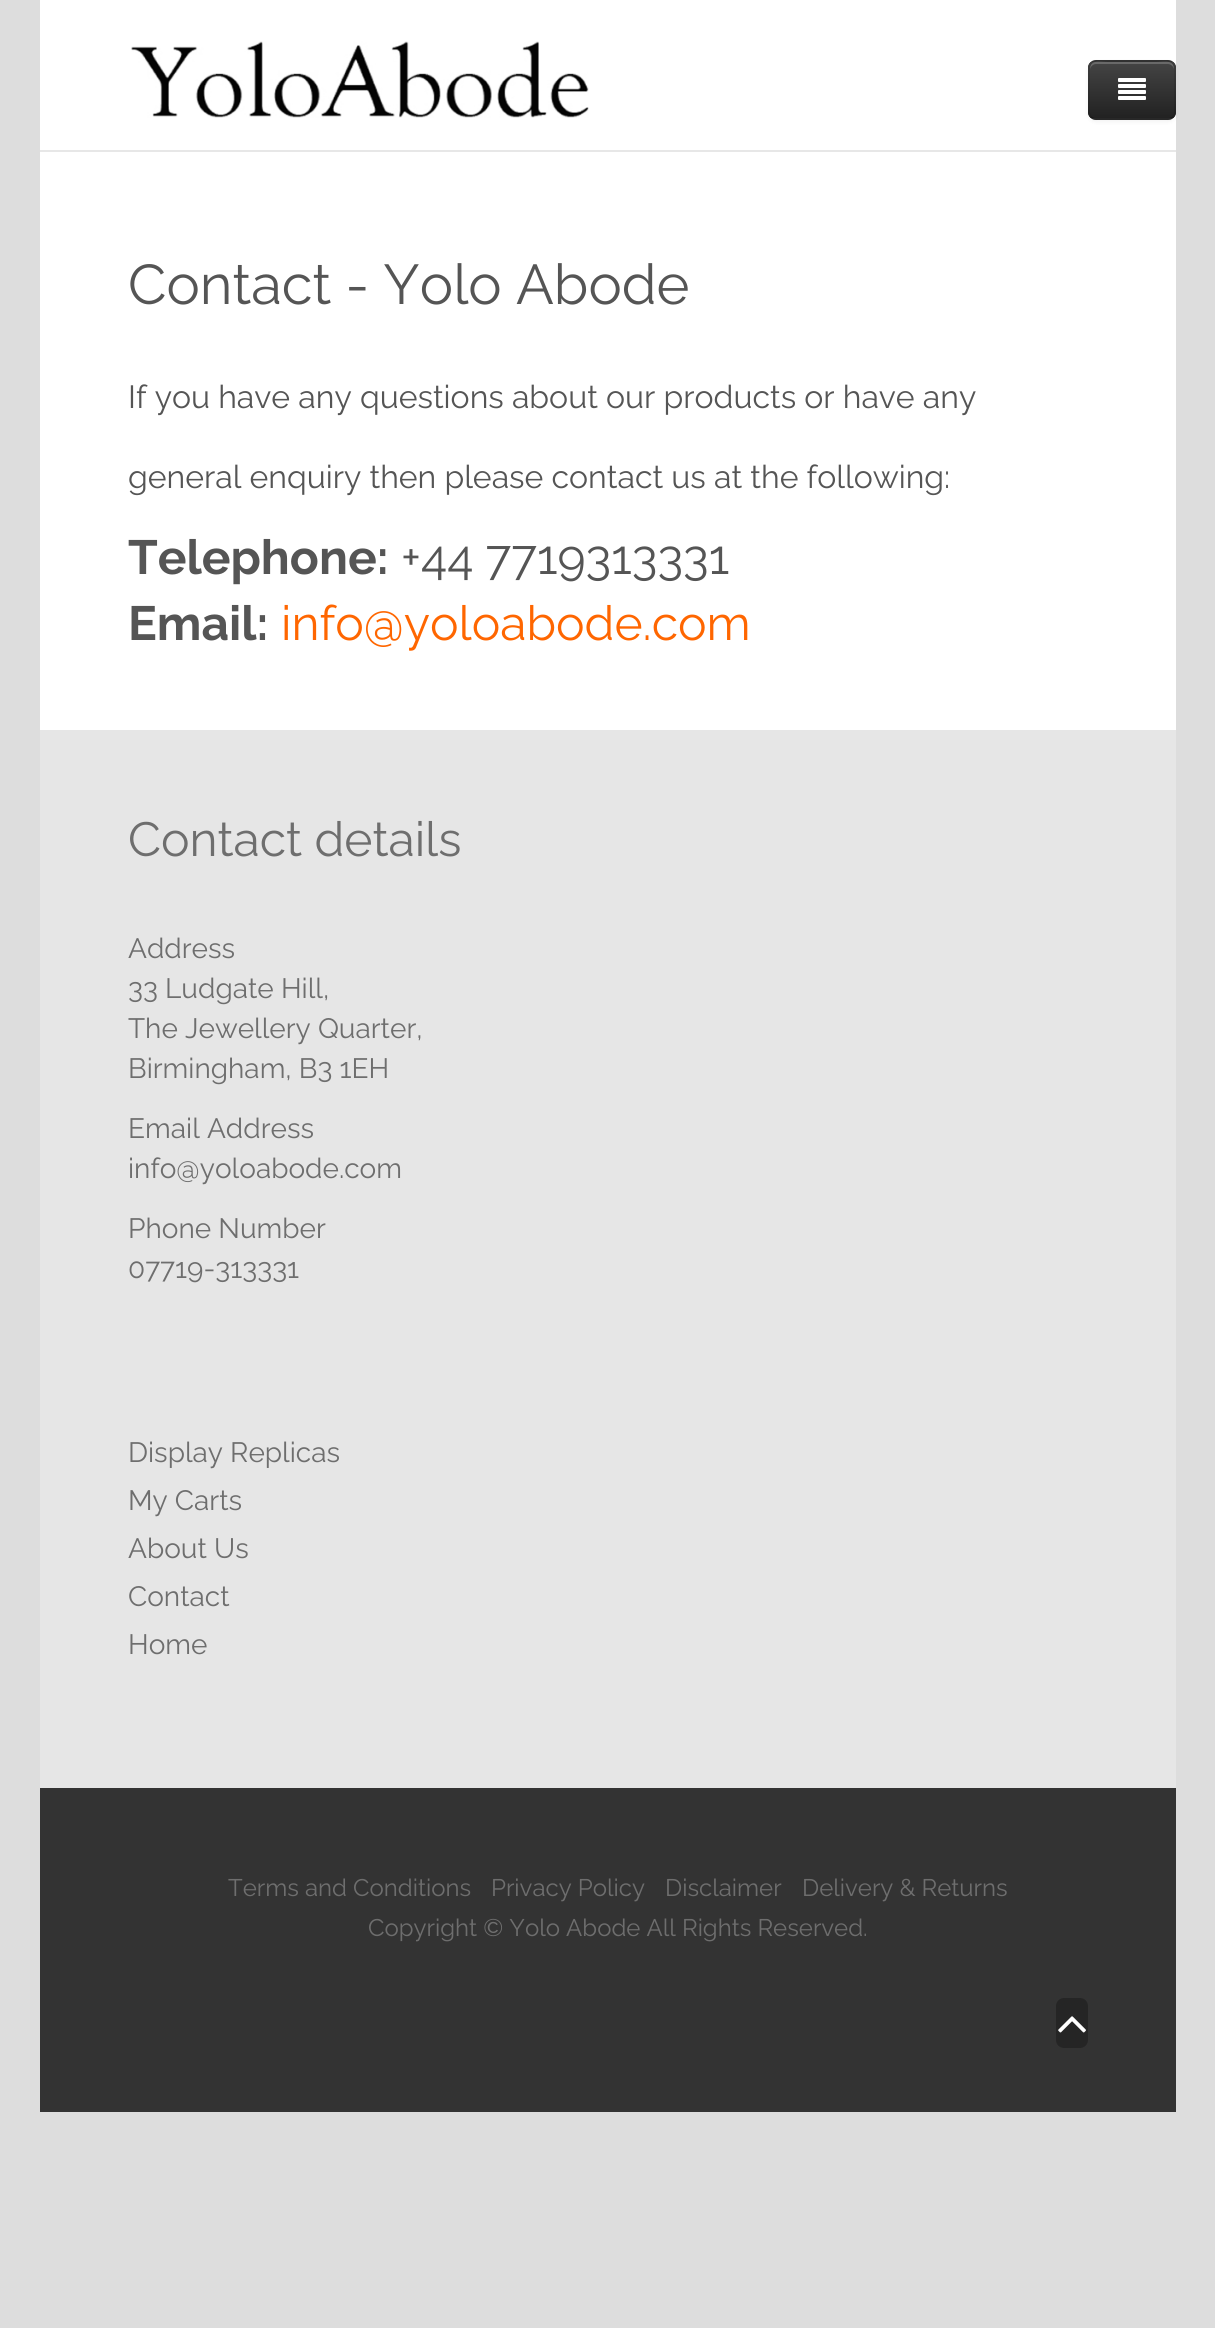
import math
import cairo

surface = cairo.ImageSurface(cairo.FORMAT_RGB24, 1215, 2328)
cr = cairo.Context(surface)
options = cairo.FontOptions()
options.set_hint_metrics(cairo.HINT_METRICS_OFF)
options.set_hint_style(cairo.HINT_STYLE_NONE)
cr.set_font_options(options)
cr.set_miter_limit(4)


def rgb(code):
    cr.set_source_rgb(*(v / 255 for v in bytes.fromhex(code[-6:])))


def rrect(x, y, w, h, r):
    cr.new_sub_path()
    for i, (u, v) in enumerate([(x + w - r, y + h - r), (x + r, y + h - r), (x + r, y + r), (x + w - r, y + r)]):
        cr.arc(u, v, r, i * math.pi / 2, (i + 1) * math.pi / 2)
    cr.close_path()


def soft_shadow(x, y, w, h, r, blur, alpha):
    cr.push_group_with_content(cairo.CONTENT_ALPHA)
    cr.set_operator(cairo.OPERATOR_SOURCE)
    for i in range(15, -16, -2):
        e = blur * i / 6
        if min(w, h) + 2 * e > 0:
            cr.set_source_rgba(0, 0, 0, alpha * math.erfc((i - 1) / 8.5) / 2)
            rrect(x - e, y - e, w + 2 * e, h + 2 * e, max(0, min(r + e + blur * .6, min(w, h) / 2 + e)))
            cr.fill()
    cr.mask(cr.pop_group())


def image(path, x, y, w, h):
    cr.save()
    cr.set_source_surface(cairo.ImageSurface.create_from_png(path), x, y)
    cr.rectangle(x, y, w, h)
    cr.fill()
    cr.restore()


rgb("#dddddd")
cr.paint()
rgb("#ffffff")
cr.rectangle(40, 0, 1136, 150)
cr.fill()
rgb("#e7e7e7")
cr.rectangle(40, 150, 1136, 2)
cr.fill()
image("img/1.png", 131, 41, 458, 77)
rgb("#000000")
soft_shadow(1088, 62, 88, 60, 8, 2, 0.05)
rgb("#363636")
rrect(1088, 60, 88, 60, 8)
cr.fill()
cr.save()
rrect(1088, 60, 88, 60, 8)
cr.clip()
gradient = cairo.LinearGradient(1132, 62, 1132, 118)
gradient.add_color_stop_rgba(0, 0.267, 0.267, 0.267, 1)
gradient.add_color_stop_rgba(1, 0.133, 0.133, 0.133, 1)
cr.set_source(gradient)
cr.rectangle(1088, 62, 88, 56)
cr.fill()
cr.restore()
cr.set_source_rgba(1, 1, 1, 0.2)
cr.new_path()
cr.move_to(1096, 64)
cr.line_to(1168, 64)
cr.curve_to(1171, 64, 1174, 67, 1174, 70)
cr.curve_to(1174, 59, 1165, 62, 1156, 62)
cr.line_to(1108, 62)
cr.curve_to(1099, 62, 1090, 59, 1090, 70)
cr.curve_to(1090, 67, 1093, 64, 1096, 64)
cr.close_path()
cr.fill()
cr.new_path()
cr.move_to(1173, 117)
cr.curve_to(1171.5, 118.5, 1170, 119, 1168, 119)
cr.line_to(1096, 119)
cr.curve_to(1094, 119, 1092.5, 118.5, 1091, 117)
cr.set_source_rgba(0, 0, 0, 0.25)
cr.stroke()
cr.new_path()
cr.move_to(1091, 117)
cr.curve_to(1089.5, 115.5, 1089, 114, 1089, 112)
cr.line_to(1089, 68)
cr.curve_to(1089, 66, 1089.5, 64.5, 1091, 63)
cr.curve_to(1092.5, 61.5, 1094, 61, 1096, 61)
cr.line_to(1168, 61)
cr.curve_to(1170, 61, 1171.5, 61.5, 1173, 63)
cr.curve_to(1174.5, 64.5, 1175, 66, 1175, 68)
cr.line_to(1175, 112)
cr.curve_to(1175, 114, 1174.5, 115.5, 1173, 117)
cr.set_source_rgba(0, 0, 0, 0.1)
cr.stroke()
image("img/2.png", 1118, 78, 28, 22)
for x, y, w, h, color in [
    (40, 152, 1136, 578, "#ffffff"),
    (40, 730, 1136, 1058, "#e6e6e6"),
    (40, 1788, 1136, 324, "#333333"),
]:
    rgb(color)
    cr.rectangle(x, y, w, h)
    cr.fill()
rgb("#252525")
rrect(1056, 1998, 32, 50, 8)
cr.fill()
image("img/3.png", 1058, 2016, 28, 17)
cr.select_font_face("Raleway Thin")
cr.set_font_size(56)
rgb("#555555")
cr.move_to(128, 304)
cr.show_text("Contact - Yolo Abode")
cr.set_font_size(32)
cr.move_to(128, 408)
cr.show_text("If you have any questions about our products or have any")
cr.move_to(128, 488)
cr.show_text("general enquiry then please contact us at the following:")
cr.select_font_face("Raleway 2 Thin")
cr.set_font_size(48)
cr.move_to(128, 574)
cr.show_text("Telephone:")
cr.select_font_face("Raleway Thin")
cr.move_to(401, 574)
cr.show_text("+44 7719313331")
cr.select_font_face("Raleway 2 Thin")
cr.move_to(128, 640)
cr.show_text("Email:")
cr.select_font_face("Raleway Thin")
rgb("#ff6600")
cr.move_to(281, 640)
cr.show_text("info@yoloabode.com")
rgb("#6e6e6e")
cr.move_to(128, 856)
cr.show_text("Contact details")
cr.set_font_size(28)
for x, y, s in [
    (128, 958, "Address"),
    (128, 998, "33 Ludgate Hill,"),
    (128, 1038, "The Jewellery Quarter,"),
    (128, 1078, "Birmingham, B3 1EH"),
    (128, 1138, "Email Address"),
    (128, 1178, "info@yoloabode.com"),
    (128, 1238, "Phone Number"),
    (128, 1278, "07719-313331"),
    (128, 1462, "Display Replicas"),
    (128, 1510, "My Carts"),
    (128, 1558, "About Us"),
    (128, 1606, "Contact"),
    (128, 1654, "Home"),
]:
    cr.move_to(x, y)
    cr.show_text(s)
cr.set_font_size(24)
for x, y, s in [
    (228, 1896, "Terms and Conditions"),
    (491, 1896, "Privacy Policy"),
    (665, 1896, "Disclaimer"),
    (802, 1896, "Delivery & Returns"),
    (368, 1936, "Copyright © Yolo Abode All Rights Reserved."),
]:
    cr.move_to(x, y)
    cr.show_text(s)
surface.write_to_png("page.png")
